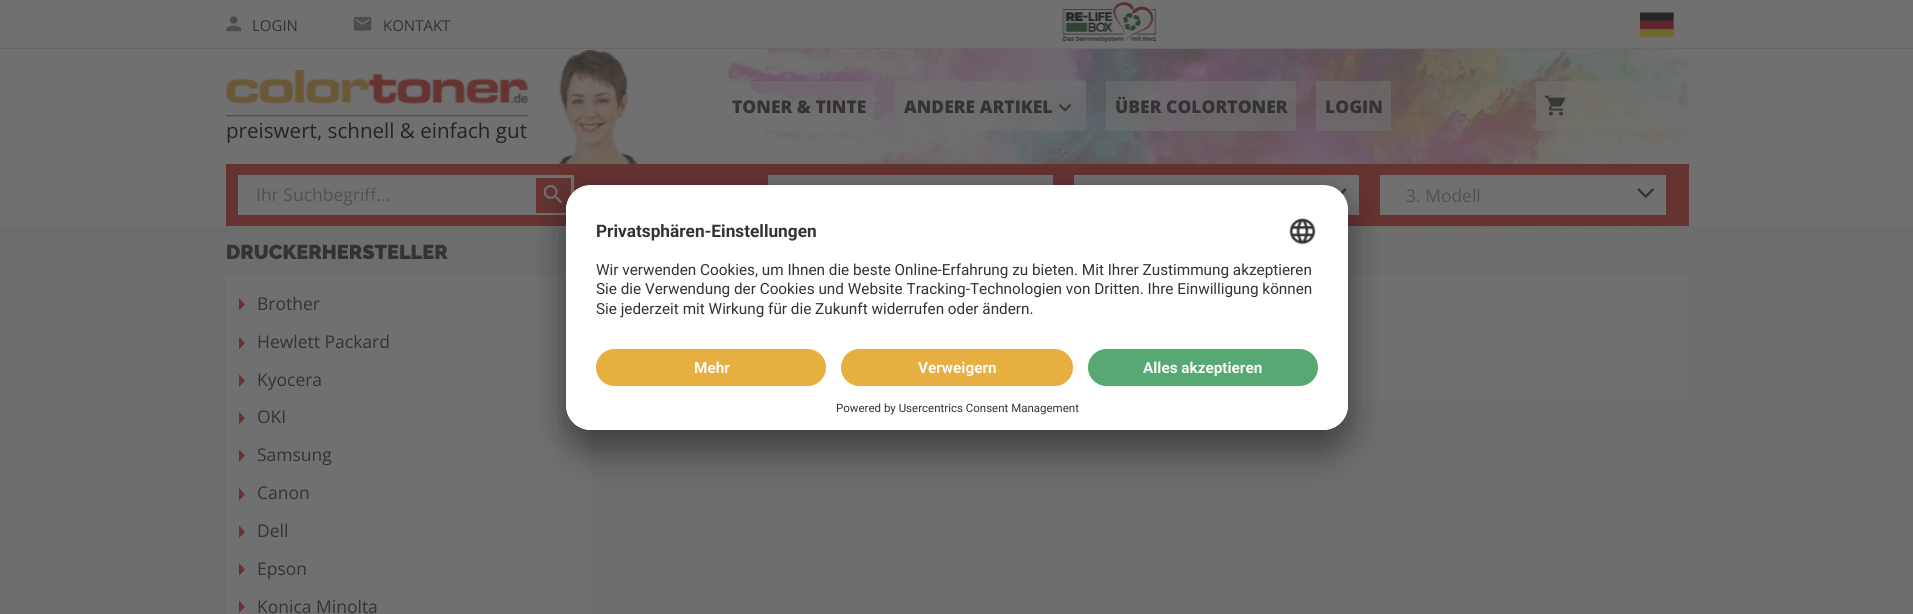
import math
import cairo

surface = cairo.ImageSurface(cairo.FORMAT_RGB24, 1913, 614)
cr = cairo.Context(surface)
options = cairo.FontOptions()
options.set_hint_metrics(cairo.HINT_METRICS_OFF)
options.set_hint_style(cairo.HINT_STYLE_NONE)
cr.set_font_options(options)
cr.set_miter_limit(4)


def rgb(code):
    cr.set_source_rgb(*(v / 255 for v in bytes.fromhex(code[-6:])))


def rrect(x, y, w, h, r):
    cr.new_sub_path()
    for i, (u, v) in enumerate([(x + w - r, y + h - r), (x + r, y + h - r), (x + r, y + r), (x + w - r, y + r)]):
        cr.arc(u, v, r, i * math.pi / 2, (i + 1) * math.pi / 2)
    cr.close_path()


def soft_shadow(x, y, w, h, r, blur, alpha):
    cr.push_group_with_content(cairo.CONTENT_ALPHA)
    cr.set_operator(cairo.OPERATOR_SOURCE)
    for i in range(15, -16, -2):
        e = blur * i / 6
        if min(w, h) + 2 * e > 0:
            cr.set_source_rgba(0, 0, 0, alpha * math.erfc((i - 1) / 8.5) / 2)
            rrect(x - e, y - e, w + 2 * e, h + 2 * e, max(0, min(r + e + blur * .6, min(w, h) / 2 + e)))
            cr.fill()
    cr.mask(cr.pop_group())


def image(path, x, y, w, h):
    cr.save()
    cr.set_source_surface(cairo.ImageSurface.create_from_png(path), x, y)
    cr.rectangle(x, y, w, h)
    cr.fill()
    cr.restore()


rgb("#707070")
cr.paint()
rgb("#666666")
cr.rectangle(0, 48, 1913, 1)
cr.fill()
image("img/1.png", 226, 16, 16, 16)
image("img/2.png", 353, 16, 19, 15)
image("img/3.png", 1062, 2, 95, 40)
image("img/4.png", 1640, 12, 34, 26)
rgb("#6d6d6d")
cr.rectangle(0, 226, 1913, 388)
cr.fill()
image("img/5.png", 726, 49, 962, 178)
cr.set_source_rgba(0.439, 0.439, 0.439, 0.6)
cr.rectangle(730, 81, 145, 50)
cr.fill()
cr.rectangle(895, 81, 191, 50)
cr.fill()
image("img/6.png", 1058, 104, 14, 8)
cr.rectangle(1106, 81, 190, 50)
cr.fill()
cr.rectangle(1316, 81, 75, 50)
cr.fill()
cr.rectangle(1536, 81, 143, 50)
cr.fill()
image("img/7.png", 1545, 95, 21, 21)
image("img/8.png", 226, 70, 303, 47)
image("img/9.png", 558, 50, 81, 114)
for x, y, w, h, color in [
    (226, 164, 1463, 62, "#643332"),
    (238, 175, 336, 40, "#707070"),
    (536, 178, 35, 35, "#643332"),
]:
    rgb(color)
    cr.rectangle(x, y, w, h)
    cr.fill()
image("img/10.png", 543, 185, 20, 19)
rgb("#707070")
cr.rectangle(768, 175, 285, 10)
cr.fill()
cr.rectangle(1074, 175, 285, 40)
cr.fill()
image("img/11.png", 1340, 188, 7, 7)
cr.rectangle(1380, 175, 286, 40)
cr.fill()
image("img/12.png", 1637, 188, 17, 10)
cr.rectangle(226, 275, 365, 339)
cr.fill()
rgb("#643332")
cr.new_path()
cr.move_to(239, 298)
cr.line_to(245, 304.5)
cr.line_to(239, 310.5)
cr.close_path()
cr.fill()
cr.new_path()
cr.move_to(239, 337)
cr.line_to(245, 343)
cr.line_to(239, 349.5)
cr.close_path()
cr.fill()
cr.new_path()
cr.move_to(239, 374.5)
cr.line_to(245, 380.5)
cr.line_to(239, 387)
cr.close_path()
cr.fill()
cr.new_path()
cr.move_to(239, 412)
cr.line_to(245, 418)
cr.line_to(239, 424.5)
cr.close_path()
cr.fill()
cr.new_path()
cr.move_to(239, 449.5)
cr.line_to(245, 455.5)
cr.line_to(239, 462)
cr.close_path()
cr.fill()
cr.new_path()
cr.move_to(239, 488)
cr.line_to(245, 494.5)
cr.line_to(239, 500.5)
cr.close_path()
cr.fill()
cr.new_path()
cr.move_to(239, 525.5)
cr.line_to(245, 532)
cr.line_to(239, 538)
cr.close_path()
cr.fill()
cr.new_path()
cr.move_to(239, 563)
cr.line_to(245, 569.5)
cr.line_to(239, 575.5)
cr.close_path()
cr.fill()
cr.new_path()
cr.move_to(239, 600.5)
cr.line_to(245, 607)
cr.line_to(239, 613)
cr.close_path()
cr.fill()
rgb("#707070")
cr.rectangle(1348, 275, 341, 125)
cr.fill()
rgb("#000000")
soft_shadow(566, 210, 782, 245, 25, 17.5, 0.3)
soft_shadow(566, 191, 782, 245, 25, 16, 0.22)
rgb("#ffffff")
rrect(566, 185, 782, 245, 25)
cr.fill()
cr.save()
rrect(566, 185, 782, 245, 25)
cr.clip()
cr.new_path()
cr.move_to(591, 185)
cr.line_to(1323, 185)
cr.curve_to(1337, 185, 1348, 196, 1348, 210)
cr.line_to(1348, 339)
cr.line_to(566, 339)
cr.line_to(566, 210)
cr.curve_to(566, 196, 577, 185, 591, 185)
cr.close_path()
cr.clip()
cr.rectangle(566, 186, 782, 153)
cr.fill()
cr.restore()
image("img/13.png", 1289, 218, 27, 27)
cr.new_path()
cr.move_to(566, 339)
cr.line_to(1348, 339)
cr.line_to(1348, 405)
cr.curve_to(1348, 419, 1337, 430, 1323, 430)
cr.line_to(591, 430)
cr.curve_to(577, 430, 566, 419, 566, 405)
cr.close_path()
cr.fill()
rgb("#e6af40")
rrect(596, 349, 230, 37, 18.5)
cr.fill()
rrect(841, 349, 232, 37, 18.5)
cr.fill()
rgb("#56a972")
rrect(1088, 349, 230, 37, 18.5)
cr.fill()
cr.select_font_face("Open Sans")
cr.set_font_size(15)
rgb("#333333")
cr.move_to(252, 31)
cr.show_text("LOGIN")
cr.move_to(383, 31)
cr.show_text("KONTAKT")
cr.select_font_face("Open Sans ExtraBold")
cr.set_font_size(17.5)
for x, y, s in [
    (732, 113, "TONER & TINTE"),
    (904, 113, "ANDERE ARTIKEL"),
    (1115, 113, "ÜBER COLORTONER"),
    (1325, 113, "LOGIN"),
]:
    cr.move_to(x, y)
    cr.show_text(s)
cr.select_font_face("Open Sans")
cr.set_font_size(20.6)
rgb("#242424")
cr.move_to(226, 138)
cr.show_text("preiswert, schnell & einfach gut")
cr.set_font_size(17.5)
rgb("#525252")
cr.move_to(256, 201)
cr.show_text("Ihr Suchbegriff...")
cr.move_to(1406, 202)
cr.show_text("3. Modell")
cr.select_font_face("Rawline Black")
cr.set_font_size(20)
rgb("#333333")
cr.move_to(226, 259)
cr.show_text("DRUCKERHERSTELLER")
cr.select_font_face("Open Sans")
cr.set_font_size(17.5)
for x, y, s in [
    (257, 310, "Brother"),
    (257, 348, "Hewlett Packard"),
    (257, 386, "Kyocera"),
    (257, 423, "OKI"),
    (257, 461, "Samsung"),
    (257, 499, "Canon"),
    (257, 537, "Dell"),
    (257, 575, "Epson"),
    (257, 613, "Konica Minolta"),
]:
    cr.move_to(x, y)
    cr.show_text(s)
cr.select_font_face("Roboto", cairo.FONT_SLANT_NORMAL, cairo.FONT_WEIGHT_BOLD)
cr.set_font_size(17.25)
cr.move_to(596, 237)
cr.show_text("Privatsphären-Einstellungen")
cr.select_font_face("Roboto")
cr.set_font_size(15.3)
for x, y, s in [
    (596, 275, "Wir verwenden Cookies, um Ihnen die beste Online-Erfahrung zu bieten. Mit Ihrer Zustimmung akzeptieren"),
    (596, 294, "Sie die Verwendung der Cookies und Website Tracking-Technologien von Dritten. Ihre Einwilligung können"),
    (596, 314, "Sie jederzeit mit Wirkung für die Zukunft widerrufen oder ändern."),
]:
    cr.move_to(x, y)
    cr.show_text(s)
cr.select_font_face("Roboto", cairo.FONT_SLANT_NORMAL, cairo.FONT_WEIGHT_BOLD)
rgb("#fafafa")
for x, y, s in [
    (694, 373, "Mehr"),
    (918, 373, "Verweigern"),
    (1143, 373, "Alles akzeptieren"),
]:
    cr.move_to(x, y)
    cr.show_text(s)
cr.select_font_face("Roboto")
cr.set_font_size(11.5)
rgb("#333333")
cr.move_to(836, 412)
cr.show_text("Powered by Usercentrics Consent Management")
surface.write_to_png("page.png")
